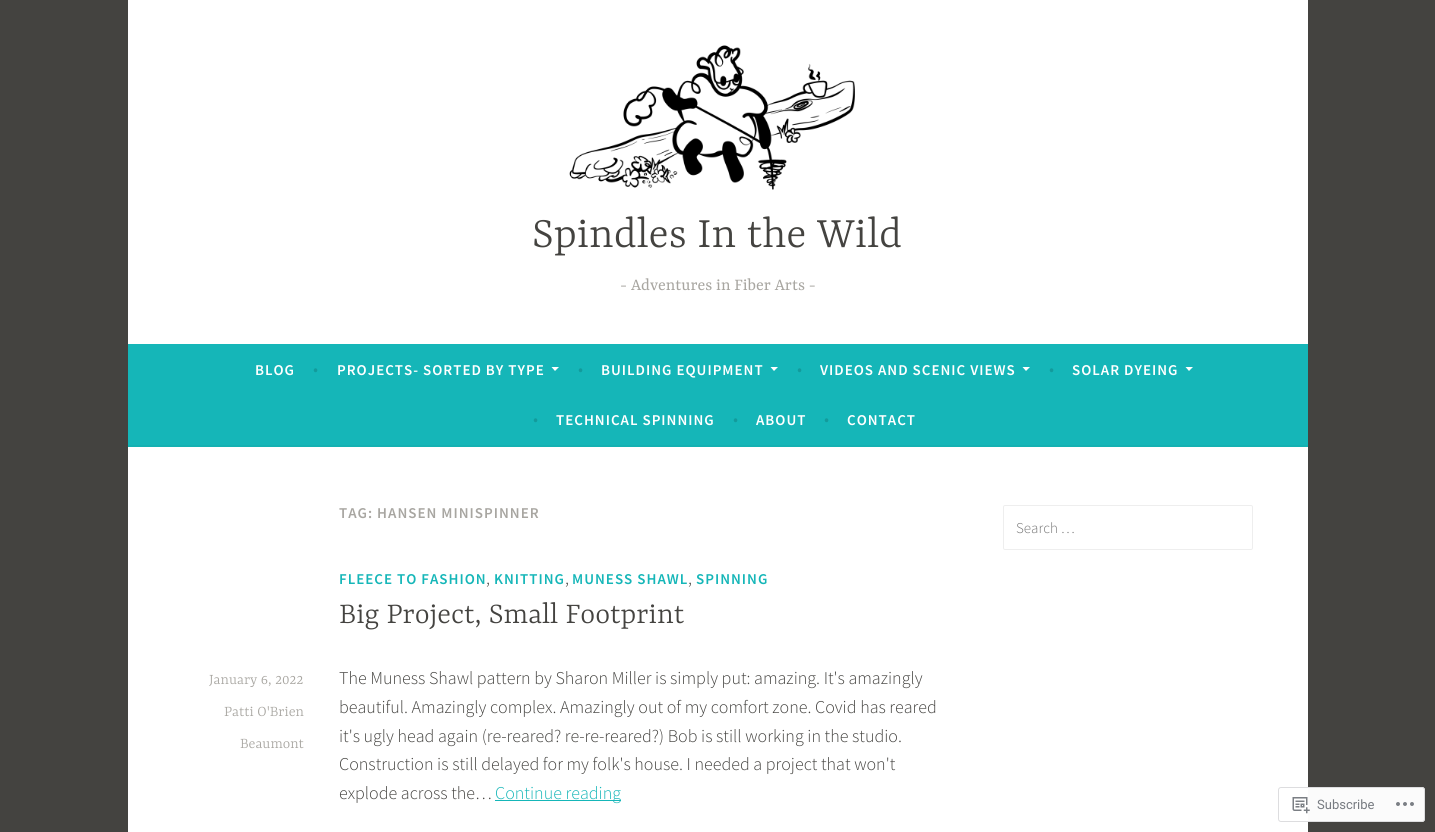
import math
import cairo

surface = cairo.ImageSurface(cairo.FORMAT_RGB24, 1435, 832)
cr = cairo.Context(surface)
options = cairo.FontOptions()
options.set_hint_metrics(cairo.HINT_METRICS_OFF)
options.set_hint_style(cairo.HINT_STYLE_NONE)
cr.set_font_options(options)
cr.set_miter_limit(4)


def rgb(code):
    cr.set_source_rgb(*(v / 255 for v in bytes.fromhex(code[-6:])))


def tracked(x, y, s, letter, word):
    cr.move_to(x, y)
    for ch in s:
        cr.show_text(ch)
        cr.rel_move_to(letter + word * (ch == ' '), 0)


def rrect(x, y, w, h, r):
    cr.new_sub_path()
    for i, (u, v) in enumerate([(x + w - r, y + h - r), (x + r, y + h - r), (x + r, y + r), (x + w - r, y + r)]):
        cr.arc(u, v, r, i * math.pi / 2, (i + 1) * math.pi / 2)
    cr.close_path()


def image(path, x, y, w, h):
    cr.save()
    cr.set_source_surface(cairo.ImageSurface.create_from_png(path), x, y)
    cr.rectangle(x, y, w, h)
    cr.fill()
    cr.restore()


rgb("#444340")
cr.paint()
rgb("#ffffff")
cr.rectangle(128, 0, 1180, 344)
cr.fill()
image("img/1.png", 569, 45, 286, 145)
rgb("#15b6b8")
cr.rectangle(128, 344, 1180, 101)
cr.fill()
rgb("#14b1b2")
cr.rectangle(128, 445, 1180, 2)
cr.fill()
rgb("#ffffff")
cr.new_path()
cr.move_to(551.5, 367)
cr.line_to(559, 367)
cr.line_to(555, 371)
cr.close_path()
cr.fill()
cr.new_path()
cr.move_to(770.5, 367)
cr.line_to(778, 367)
cr.line_to(774, 371)
cr.close_path()
cr.fill()
cr.new_path()
cr.move_to(1022.5, 367)
cr.line_to(1030, 367)
cr.line_to(1026, 371)
cr.close_path()
cr.fill()
cr.new_path()
cr.move_to(1185.5, 367)
cr.line_to(1193, 367)
cr.line_to(1189, 371)
cr.close_path()
cr.fill()
cr.rectangle(128, 447, 1180, 385)
cr.fill()
rgb("#15b6b8")
cr.rectangle(495, 800, 126, 1)
cr.fill()
rrect(1003.5, 505.5, 249, 44, 1.5)
rgb("#eeeeee")
cr.set_line_width(1)
cr.stroke()
cr.set_source_rgba(1, 1, 1, 0.98)
rrect(1278, 787, 147, 35, 3)
cr.fill()
rrect(1278.5, 787.5, 146, 34, 2.5)
cr.set_source_rgba(0.863, 0.863, 0.871, 0.98)
cr.stroke()
image("img/2.png", 1292, 797, 18, 17)
image("img/3.png", 1396, 802, 18, 4)
cr.select_font_face("Yrsa Light")
cr.set_font_size(47)
rgb("#444340")
cr.move_to(532, 247)
cr.show_text("Spindles In the Wild")
cr.select_font_face("Yrsa")
cr.set_font_size(18)
rgb("#a8a6a1")
cr.move_to(620, 290)
cr.show_text("- Adventures in Fiber Arts -")
cr.select_font_face("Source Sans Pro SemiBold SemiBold")
cr.set_font_size(15)
rgb("#ffffff")
tracked(255, 375, "BLOG", 1, 0)
cr.select_font_face("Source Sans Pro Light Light")
cr.set_font_size(18)
rgb("#129b9c")
cr.move_to(313, 375)
cr.show_text("•")
cr.select_font_face("Source Sans Pro SemiBold SemiBold")
cr.set_font_size(15)
rgb("#ffffff")
tracked(337, 375, "PROJECTS- SORTED BY TYPE", 1, 0)
cr.select_font_face("Source Sans Pro Light Light")
cr.set_font_size(18)
rgb("#129b9c")
cr.move_to(578, 375)
cr.show_text("•")
cr.select_font_face("Source Sans Pro SemiBold SemiBold")
cr.set_font_size(15)
rgb("#ffffff")
tracked(601, 375, "BUILDING EQUIPMENT", 1, 0)
cr.select_font_face("Source Sans Pro Light Light")
cr.set_font_size(18)
rgb("#129b9c")
cr.move_to(797, 375)
cr.show_text("•")
cr.select_font_face("Source Sans Pro SemiBold SemiBold")
cr.set_font_size(15)
rgb("#ffffff")
tracked(820, 375, "VIDEOS AND SCENIC VIEWS", 1, 0)
cr.select_font_face("Source Sans Pro Light Light")
cr.set_font_size(18)
rgb("#129b9c")
cr.move_to(1049, 375)
cr.show_text("•")
cr.select_font_face("Source Sans Pro SemiBold SemiBold")
cr.set_font_size(15)
rgb("#ffffff")
tracked(1072, 375, "SOLAR DYEING", 1, 0)
cr.select_font_face("Source Sans Pro Light Light")
cr.set_font_size(18)
rgb("#129b9c")
cr.move_to(533, 425)
cr.show_text("•")
cr.select_font_face("Source Sans Pro SemiBold SemiBold")
cr.set_font_size(15)
rgb("#ffffff")
tracked(556, 425, "TECHNICAL SPINNING", 1, 0)
cr.select_font_face("Source Sans Pro Light Light")
cr.set_font_size(18)
rgb("#129b9c")
cr.move_to(733, 425)
cr.show_text("•")
cr.select_font_face("Source Sans Pro SemiBold SemiBold")
cr.set_font_size(15)
rgb("#ffffff")
tracked(756, 425, "ABOUT", 1, 0)
cr.select_font_face("Source Sans Pro Light Light")
cr.set_font_size(18)
rgb("#129b9c")
cr.move_to(824, 425)
cr.show_text("•")
cr.select_font_face("Source Sans Pro SemiBold SemiBold")
cr.set_font_size(15)
rgb("#ffffff")
tracked(847, 425, "CONTACT", 1, 0)
rgb("#a8a6a1")
tracked(339, 518, "TAG: HANSEN MINISPINNER", 1, 0)
rgb("#15b6b8")
tracked(339, 584, "FLEECE TO FASHION", 1, 0)
cr.select_font_face("Source Sans Pro Light Light")
cr.set_font_size(18)
rgb("#444340")
cr.move_to(486, 584)
cr.show_text(",")
cr.select_font_face("Source Sans Pro SemiBold SemiBold")
cr.set_font_size(15)
rgb("#15b6b8")
tracked(494, 584, "KNITTING", 1, 0)
cr.select_font_face("Source Sans Pro Light Light")
cr.set_font_size(18)
rgb("#444340")
cr.move_to(565, 584)
cr.show_text(",")
cr.select_font_face("Source Sans Pro SemiBold SemiBold")
cr.set_font_size(15)
rgb("#15b6b8")
tracked(572, 584, "MUNESS SHAWL", 1, 0)
cr.select_font_face("Source Sans Pro Light Light")
cr.set_font_size(18)
rgb("#444340")
cr.move_to(688, 584)
cr.show_text(",")
cr.select_font_face("Source Sans Pro SemiBold SemiBold")
cr.set_font_size(15)
rgb("#15b6b8")
tracked(696, 584, "SPINNING", 1, 0)
cr.select_font_face("Yrsa Light")
cr.set_font_size(32)
rgb("#444340")
cr.move_to(339, 623)
cr.show_text("Big Project, Small Footprint")
cr.set_font_size(16)
rgb("#a8a6a1")
for x, y, s in [
    (209, 684, "January 6, 2022"),
    (224, 716, "Patti O'Brien"),
    (240, 748, "Beaumont"),
]:
    cr.move_to(x, y)
    cr.show_text(s)
cr.select_font_face("Source Sans Pro Light Light")
cr.set_font_size(18)
rgb("#444340")
for x, y, s in [
    (339, 684, "The Muness Shawl pattern by Sharon Miller is simply put: amazing. It's amazingly"),
    (339, 713, "beautiful. Amazingly complex. Amazingly out of my comfort zone. Covid has reared"),
    (339, 742, "it's ugly head again (re-reared? re-re-reared?) Bob is still working in the studio."),
    (339, 770, "Construction is still delayed for my folk's house. I needed a project that won't"),
    (339, 799, "explode across the…"),
]:
    cr.move_to(x, y)
    cr.show_text(s)
rgb("#15b6b8")
cr.move_to(495, 799)
cr.show_text("Continue reading")
cr.set_font_size(15)
rgb("#757575")
cr.move_to(1016, 533)
cr.show_text("Search …")
cr.select_font_face("Roboto")
cr.set_font_size(13)
rgb("#777b81")
cr.move_to(1317, 809)
cr.show_text("Subscribe")
surface.write_to_png("page.png")
